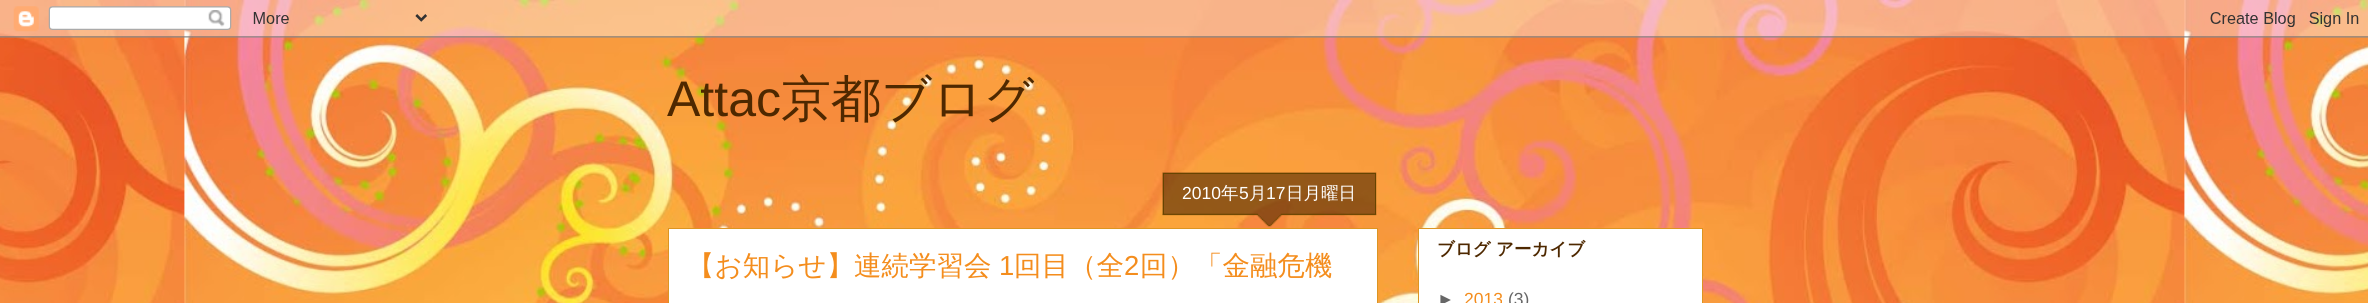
import math
import cairo

surface = cairo.ImageSurface(cairo.FORMAT_RGB24, 2368, 303)
cr = cairo.Context(surface)
options = cairo.FontOptions()
options.set_hint_metrics(cairo.HINT_METRICS_OFF)
options.set_hint_style(cairo.HINT_STYLE_NONE)
cr.set_font_options(options)
cr.set_miter_limit(4)


def rgb(code):
    cr.set_source_rgb(*(v / 255 for v in bytes.fromhex(code[-6:])))


def image(path, x, y, w, h):
    cr.save()
    cr.set_source_surface(cairo.ImageSurface.create_from_png(path), x, y)
    cr.rectangle(x, y, w, h)
    cr.fill()
    cr.restore()


rgb("#ffffff")
cr.paint()
image("img/1.png", 0, 0, 2368, 303)
image("img/2.png", 0, 0, 2368, 38)
rgb("#ffffff")
cr.rectangle(668.5, 228.5, 709, 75)
cr.fill_preserve()
rgb("#dc9522")
cr.set_line_width(1)
cr.stroke()
image("img/3.png", 1162, 172, 215, 55)
for x, y, w, h, color in [
    (1163, 173, 213, 1, "#664400"),
    (1375, 174, 1, 40, "#664400"),
    (1163, 174, 1, 40, "#664400"),
]:
    rgb(color)
    cr.rectangle(x, y, w, h)
    cr.fill()
rgb("#ffffff")
cr.rectangle(1418.5, 228.5, 284, 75)
cr.fill_preserve()
rgb("#dc9522")
cr.stroke()
cr.select_font_face("Liberation Sans")
cr.set_font_size(50)
rgb("#4e2800")
cr.move_to(667, 116)
cr.show_text("Attac")
cr.select_font_face("WenQuanYi Zen Hei Medium")
cr.move_to(781, 116)
cr.show_text("京都ブログ")
cr.select_font_face("Liberation Sans")
cr.set_font_size(17.5)
rgb("#ffffff")
cr.move_to(1182, 199)
cr.show_text("2010")
cr.select_font_face("WenQuanYi Zen Hei Medium")
cr.move_to(1221, 199)
cr.show_text("年")
cr.select_font_face("Liberation Sans")
cr.move_to(1239, 199)
cr.show_text("5")
cr.select_font_face("WenQuanYi Zen Hei Medium")
cr.move_to(1249, 199)
cr.show_text("月")
cr.select_font_face("Liberation Sans")
cr.move_to(1266, 199)
cr.show_text("17")
cr.select_font_face("WenQuanYi Zen Hei Medium")
cr.move_to(1286, 199)
cr.show_text("日月曜日")
cr.set_font_size(27.5)
rgb("#f48d1d")
cr.move_to(687, 275)
cr.show_text("【お知らせ】連続学習会")
cr.select_font_face("Liberation Sans")
cr.move_to(999, 275)
cr.show_text("1")
cr.select_font_face("WenQuanYi Zen Hei Medium")
cr.move_to(1014, 275)
cr.show_text("回目（全")
cr.select_font_face("Liberation Sans")
cr.move_to(1124, 275)
cr.show_text("2")
cr.select_font_face("WenQuanYi Zen Hei Medium")
cr.move_to(1140, 275)
cr.show_text("回）「金融危機")
cr.select_font_face("WenQuanYi Zen Hei", cairo.FONT_SLANT_NORMAL, cairo.FONT_WEIGHT_BOLD)
cr.set_font_size(17.5)
rgb("#4e2800")
cr.move_to(1437, 255)
cr.show_text("ブログ アーカイブ")
cr.select_font_face("Liberation Sans")
rgb("#666666")
cr.move_to(1437, 305)
cr.show_text("►")
rgb("#f48d1d")
cr.move_to(1464, 305)
cr.show_text("2013")
rgb("#666666")
cr.move_to(1508, 305)
cr.show_text("(3)")
surface.write_to_png("page.png")
